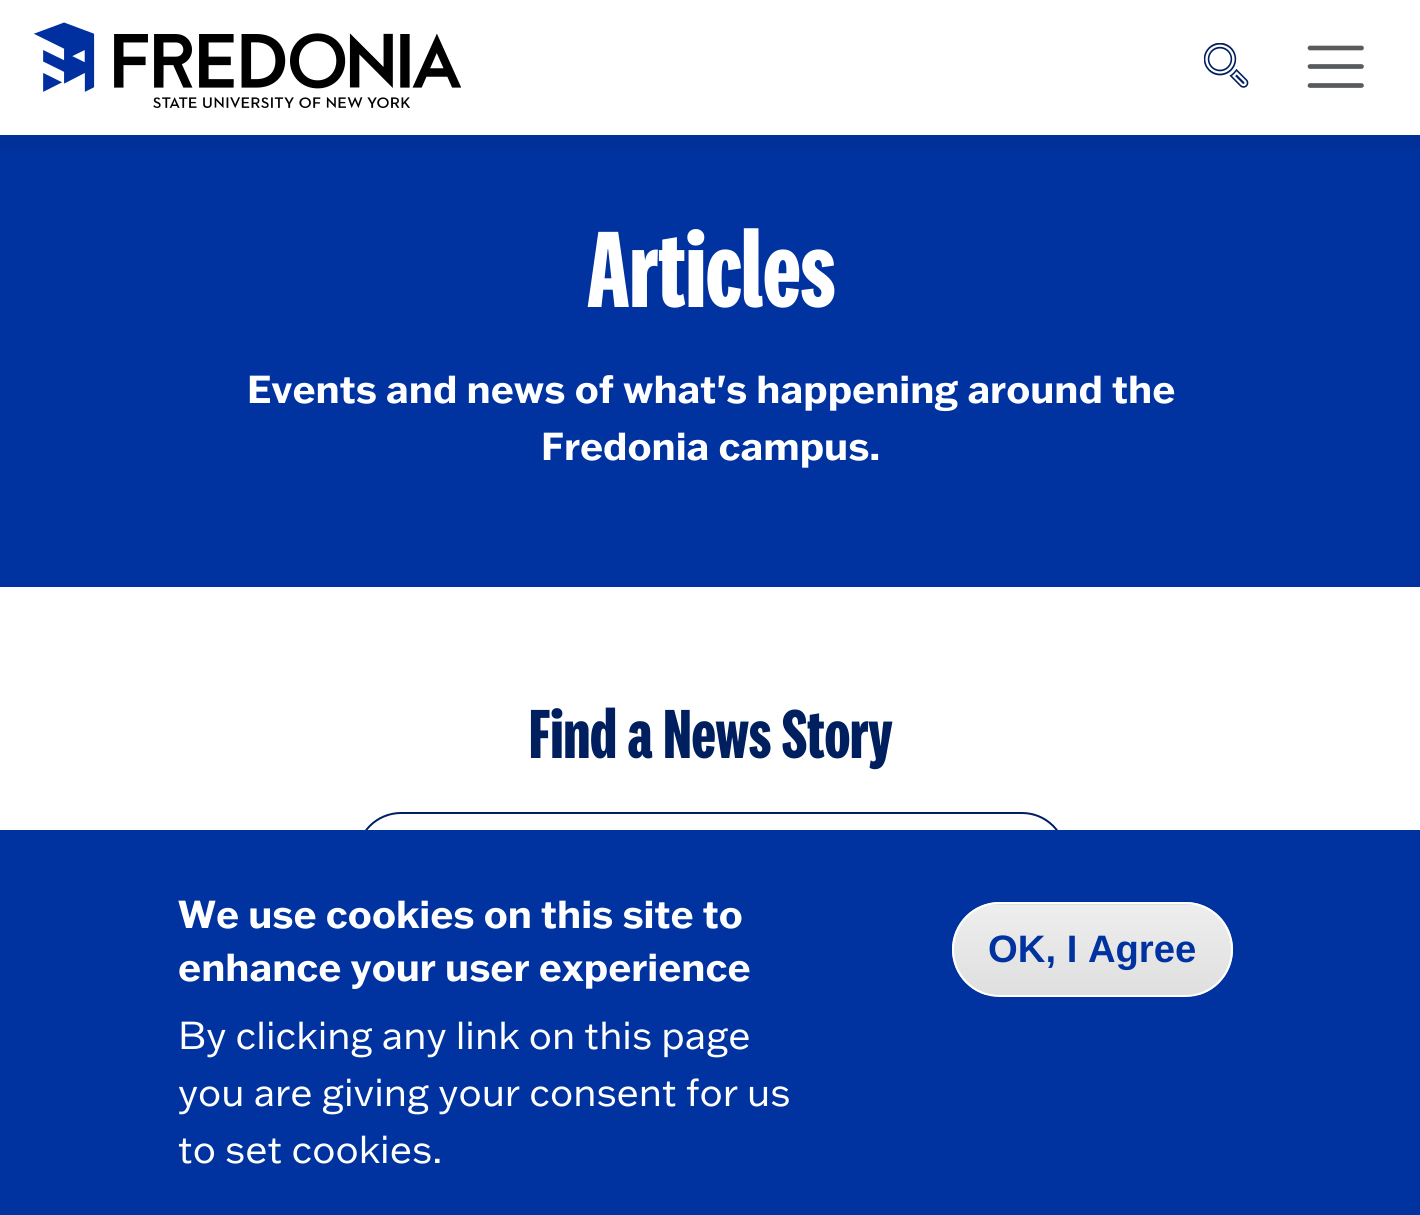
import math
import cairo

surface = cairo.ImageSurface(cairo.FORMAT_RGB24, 1420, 1215)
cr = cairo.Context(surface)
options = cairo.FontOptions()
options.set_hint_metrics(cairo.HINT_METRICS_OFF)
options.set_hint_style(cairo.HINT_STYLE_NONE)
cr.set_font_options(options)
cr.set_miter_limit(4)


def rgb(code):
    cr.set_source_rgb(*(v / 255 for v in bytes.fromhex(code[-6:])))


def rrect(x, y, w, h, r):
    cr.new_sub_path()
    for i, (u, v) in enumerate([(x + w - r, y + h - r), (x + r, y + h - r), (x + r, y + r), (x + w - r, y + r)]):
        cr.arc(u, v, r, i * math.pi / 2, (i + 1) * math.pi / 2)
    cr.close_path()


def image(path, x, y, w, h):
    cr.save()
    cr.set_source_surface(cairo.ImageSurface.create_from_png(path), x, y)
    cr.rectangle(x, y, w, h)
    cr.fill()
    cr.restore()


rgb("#ffffff")
cr.paint()
rgb("#003098")
cr.rectangle(0, 135, 1420, 14)
cr.fill()
image("img/1.png", 34, 22, 427, 86)
image("img/2.png", 1204, 43, 45, 45)
cr.new_path()
cr.move_to(1310, 48)
cr.line_to(1361.5, 48)
cr.move_to(1310, 66.5)
cr.line_to(1361.5, 66.5)
cr.move_to(1310, 85.5)
cr.line_to(1361.5, 85.5)
rgb("#595c5f")
cr.set_line_width(4.7)
cr.set_line_cap(cairo.LINE_CAP_ROUND)
cr.stroke()
rgb("#0033a0")
cr.rectangle(0, 149, 1420, 438)
cr.fill()
rrect(357, 813, 709, 88, 44)
rgb("#001f5f")
cr.set_line_width(2)
cr.set_line_cap(cairo.LINE_CAP_BUTT)
cr.stroke()
rgb("#0033a0")
cr.rectangle(0, 830, 1420, 385)
cr.fill()
cr.save()
rrect(952, 902, 281, 95, 47.5)
cr.clip()
gradient = cairo.LinearGradient(1092, 815, 1092, 905)
gradient.add_color_stop_rgba(0.05, 0.929, 0.929, 0.929, 1)
gradient.add_color_stop_rgba(1, 0.875, 0.875, 0.875, 1)
cr.set_source(gradient)
cr.rectangle(983, 902, 219, 3)
cr.fill()
gradient = cairo.LinearGradient(1092, 905, 1092, 995)
gradient.add_color_stop_rgba(0.05, 0.929, 0.929, 0.929, 1)
gradient.add_color_stop_rgba(1, 0.875, 0.875, 0.875, 1)
cr.set_source(gradient)
cr.rectangle(952, 905, 281, 90)
cr.fill()
cr.restore()
rrect(953, 903, 279, 93, 46.5)
rgb("#ffffff")
cr.stroke()
cr.select_font_face("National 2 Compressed", cairo.FONT_SLANT_NORMAL, cairo.FONT_WEIGHT_BOLD)
cr.set_font_size(112.5)
cr.move_to(587, 307)
cr.show_text("Articles")
cr.select_font_face("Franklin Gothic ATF", cairo.FONT_SLANT_NORMAL, cairo.FONT_WEIGHT_BOLD)
cr.set_font_size(38.25)
cr.move_to(247, 403)
cr.show_text("Events and news of what's happening around the")
cr.move_to(541, 460)
cr.show_text("Fredonia campus.")
cr.select_font_face("National 2 Compressed", cairo.FONT_SLANT_NORMAL, cairo.FONT_WEIGHT_BOLD)
cr.set_font_size(72)
rgb("#001f5f")
cr.move_to(529, 758)
cr.show_text("Find a News Story")
cr.select_font_face("Franklin Gothic ATF", cairo.FONT_SLANT_NORMAL, cairo.FONT_WEIGHT_BOLD)
cr.set_font_size(38.25)
rgb("#ffffff")
cr.move_to(178, 928)
cr.show_text("We use cookies on this site to")
cr.move_to(178, 981)
cr.show_text("enhance your user experience")
cr.select_font_face("Franklin Gothic ATF")
for x, y, s in [
    (178, 1049, "By clicking any link on this page"),
    (178, 1106, "you are giving your consent for us"),
    (178, 1163, "to set cookies."),
]:
    cr.move_to(x, y)
    cr.show_text(s)
cr.select_font_face("Liberation Sans", cairo.FONT_SLANT_NORMAL, cairo.FONT_WEIGHT_BOLD)
rgb("#0033a0")
cr.move_to(988, 962)
cr.show_text("OK, I Agree")
surface.write_to_png("page.png")
